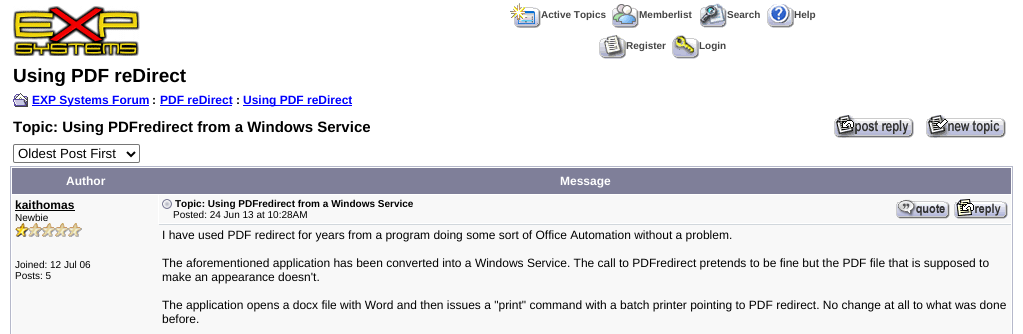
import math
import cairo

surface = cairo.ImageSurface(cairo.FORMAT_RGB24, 1023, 334)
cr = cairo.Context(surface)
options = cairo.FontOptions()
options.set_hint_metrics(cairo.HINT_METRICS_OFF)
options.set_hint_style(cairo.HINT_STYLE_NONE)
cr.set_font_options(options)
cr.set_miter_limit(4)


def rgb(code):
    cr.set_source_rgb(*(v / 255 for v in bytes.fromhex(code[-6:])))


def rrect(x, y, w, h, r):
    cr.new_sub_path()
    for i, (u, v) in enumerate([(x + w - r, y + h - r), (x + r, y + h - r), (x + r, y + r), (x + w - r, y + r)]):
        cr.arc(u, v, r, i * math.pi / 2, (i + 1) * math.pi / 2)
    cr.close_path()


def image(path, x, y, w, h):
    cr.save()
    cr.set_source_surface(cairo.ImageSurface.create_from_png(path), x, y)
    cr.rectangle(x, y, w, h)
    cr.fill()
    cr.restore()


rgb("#ffffff")
cr.paint()
image("img/1.png", 13, 6, 127, 50)
image("img/2.png", 510, 3, 31, 25)
image("img/3.png", 612, 4, 27, 24)
image("img/4.png", 700, 3, 27, 25)
image("img/5.png", 767, 4, 27, 24)
image("img/6.png", 599, 35, 27, 24)
image("img/7.png", 672, 35, 27, 24)
image("img/8.png", 13, 93, 15, 14)
for x, y, w, h, color in [
    (32, 105, 117, 1, "#0000ff"),
    (160, 105, 72, 1, "#0000ff"),
    (243, 105, 109, 1, "#0000ff"),
]:
    rgb(color)
    cr.rectangle(x, y, w, h)
    cr.fill()
image("img/9.png", 834, 115, 80, 23)
image("img/10.png", 926, 115, 80, 23)
rrect(13.5, 144.5, 126, 18, 1.5)
rgb("#767676")
cr.set_line_width(1)
cr.stroke()
cr.new_path()
cr.move_to(127, 152)
cr.line_to(131, 156)
cr.line_to(135, 152)
rgb("#000000")
cr.set_line_width(2)
cr.stroke()
cr.rectangle(10.5, 166.5, 1002, 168)
rgb("#b6b9cb")
cr.set_line_width(1)
cr.stroke()
for x, y, w, h, color in [
    (12, 168, 999, 26, "#7f7f99"),
    (12, 195, 146, 29, "#f8f8f8"),
    (15, 210, 60, 1, "#000000"),
    (12, 224, 999, 110, "#f8f8f8"),
]:
    rgb(color)
    cr.rectangle(x, y, w, h)
    cr.fill()
image("img/11.png", 15, 223, 67, 14)
cr.rectangle(159, 195, 852, 28)
cr.fill()
image("img/12.png", 162, 199, 10, 10)
image("img/13.png", 896, 199, 54, 20)
image("img/14.png", 954, 199, 54, 20)
rgb("#d1d7dc")
cr.rectangle(159, 224, 852, 1)
cr.fill()
cr.select_font_face("Liberation Sans", cairo.FONT_SLANT_NORMAL, cairo.FONT_WEIGHT_BOLD)
cr.set_font_size(10)
rgb("#444444")
for x, y, s in [
    (541, 18, "Active Topics"),
    (639, 18, "Memberlist"),
    (727, 18, "Search"),
    (794, 18, "Help"),
    (626, 49, "Register"),
    (699, 49, "Login"),
]:
    cr.move_to(x, y)
    cr.show_text(s)
cr.set_font_size(19)
rgb("#000000")
cr.move_to(13, 82)
cr.show_text("Using PDF reDirect")
cr.set_font_size(12)
rgb("#0000ff")
cr.move_to(32, 104)
cr.show_text("EXP Systems Forum")
rgb("#000000")
cr.move_to(152, 104)
cr.show_text(":")
rgb("#0000ff")
cr.move_to(160, 104)
cr.show_text("PDF reDirect")
rgb("#000000")
cr.move_to(236, 104)
cr.show_text(":")
rgb("#0000ff")
cr.move_to(243, 104)
cr.show_text("Using PDF reDirect")
cr.set_font_size(15)
rgb("#000000")
cr.move_to(13, 132)
cr.show_text("Topic: Using PDFredirect from a Windows Service")
cr.select_font_face("Liberation Sans")
cr.set_font_size(13.25)
cr.move_to(18, 158)
cr.show_text("Oldest Post First")
cr.select_font_face("Liberation Sans", cairo.FONT_SLANT_NORMAL, cairo.FONT_WEIGHT_BOLD)
cr.set_font_size(12)
rgb("#ffffff")
cr.move_to(66, 185)
cr.show_text("Author")
cr.move_to(560, 185)
cr.show_text("Message")
rgb("#000000")
cr.move_to(15, 209)
cr.show_text("kaithomas")
cr.select_font_face("Liberation Sans")
cr.set_font_size(10)
for x, y, s in [
    (15, 221, "Newbie"),
    (15, 268, "Joined: 12 Jul 06"),
    (15, 279, "Posts: 5"),
]:
    cr.move_to(x, y)
    cr.show_text(s)
cr.select_font_face("Liberation Sans", cairo.FONT_SLANT_NORMAL, cairo.FONT_WEIGHT_BOLD)
cr.move_to(175, 207)
cr.show_text("Topic: Using PDFredirect from a Windows Service")
cr.select_font_face("Liberation Sans")
cr.move_to(173, 218)
cr.show_text("Posted: 24 Jun 13 at 10:28AM")
cr.set_font_size(12)
for x, y, s in [
    (162, 239, "I have used PDF redirect for years from a program doing some sort of Office Automation without a problem."),
    (162, 267, "The aforementioned application has been converted into a Windows Service. The call to PDFredirect pretends to be fine but the PDF file that is supposed to"),
    (162, 281, "make an appearance doesn't."),
    (162, 309, "The application opens a docx file with Word and then issues a \"print\" command with a batch printer pointing to PDF redirect. No change at all to what was done"),
    (162, 323, "before."),
]:
    cr.move_to(x, y)
    cr.show_text(s)
surface.write_to_png("page.png")
